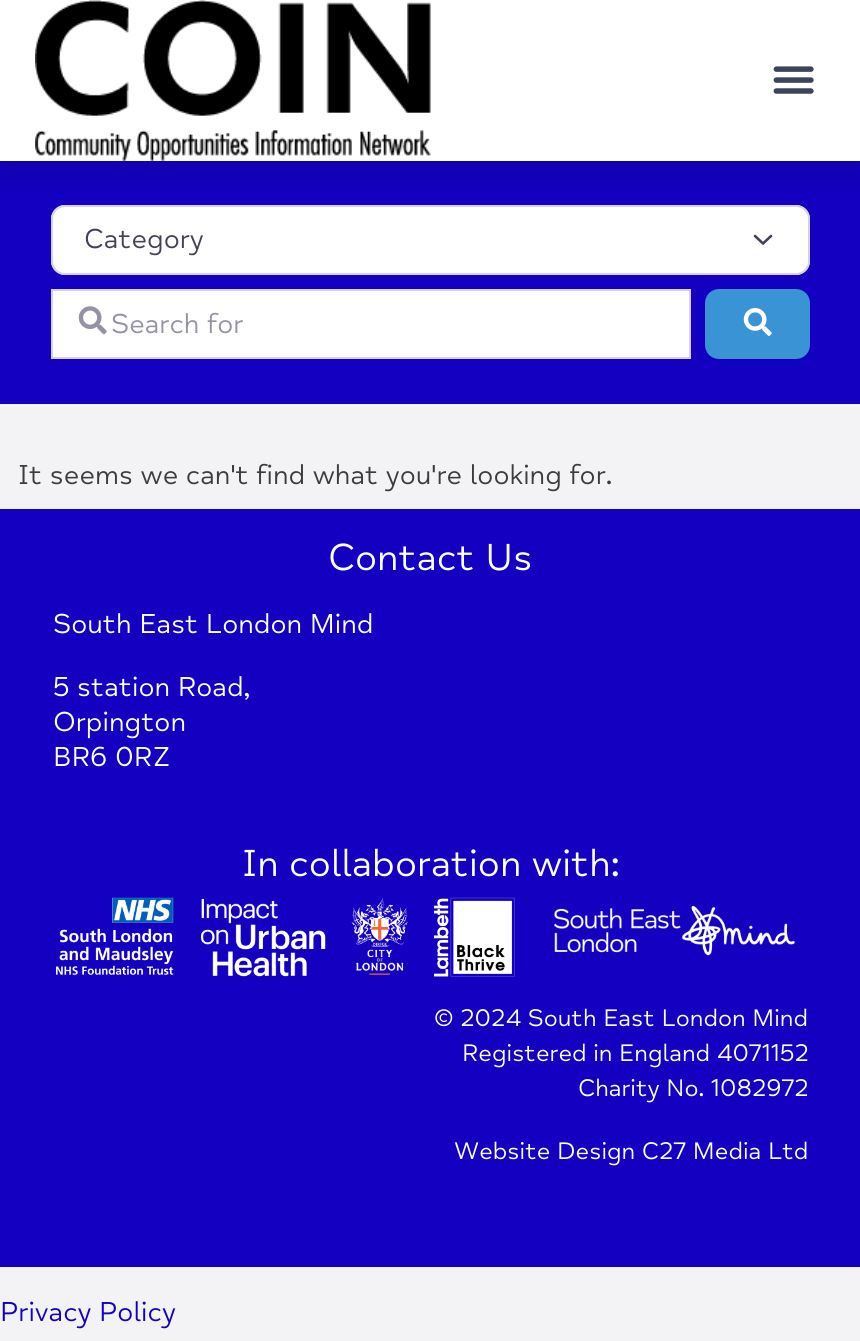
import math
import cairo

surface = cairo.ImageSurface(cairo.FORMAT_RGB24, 860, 1341)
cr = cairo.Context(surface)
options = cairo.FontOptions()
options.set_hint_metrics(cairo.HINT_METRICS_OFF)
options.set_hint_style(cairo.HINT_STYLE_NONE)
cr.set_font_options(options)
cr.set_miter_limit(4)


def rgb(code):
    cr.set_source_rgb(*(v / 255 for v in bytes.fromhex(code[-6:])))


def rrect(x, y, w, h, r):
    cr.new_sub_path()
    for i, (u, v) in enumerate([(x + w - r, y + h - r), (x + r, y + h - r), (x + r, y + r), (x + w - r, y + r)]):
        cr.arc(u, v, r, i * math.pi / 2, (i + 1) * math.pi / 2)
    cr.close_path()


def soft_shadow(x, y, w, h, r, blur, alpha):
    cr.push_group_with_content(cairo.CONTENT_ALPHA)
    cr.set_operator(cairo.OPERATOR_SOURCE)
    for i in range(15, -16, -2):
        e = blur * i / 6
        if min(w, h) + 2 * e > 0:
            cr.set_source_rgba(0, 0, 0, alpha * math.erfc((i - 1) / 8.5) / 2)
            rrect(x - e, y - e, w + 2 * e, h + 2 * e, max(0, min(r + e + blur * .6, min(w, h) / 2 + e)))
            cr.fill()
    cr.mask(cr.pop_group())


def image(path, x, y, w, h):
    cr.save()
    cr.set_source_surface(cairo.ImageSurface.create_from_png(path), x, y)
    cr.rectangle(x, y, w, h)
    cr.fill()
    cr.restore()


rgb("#f3f3f6")
cr.paint()
rgb("#ffffff")
cr.rectangle(0, 0, 860, 161)
cr.fill()
rgb("#1300c1")
cr.rectangle(0, 161, 860, 243)
cr.fill()
rgb("#ffffff")
rrect(51, 205, 759, 70, 14)
cr.fill()
cr.new_path()
cr.move_to(755, 236)
cr.line_to(763, 243.5)
cr.line_to(771, 236)
rgb("#454056")
cr.set_line_width(2.6)
cr.set_line_cap(cairo.LINE_CAP_ROUND)
cr.set_line_join(cairo.LINE_JOIN_ROUND)
cr.stroke()
rrect(52, 206, 757, 68, 13)
rgb("#d5d2dc")
cr.set_line_width(2)
cr.set_line_cap(cairo.LINE_CAP_BUTT)
cr.set_line_join(cairo.LINE_JOIN_MITER)
cr.stroke()
cr.save()
cr.rectangle(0, 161, 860, 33)
cr.clip()
rgb("#000000")
soft_shadow(0, 18, 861, 161, 0, 17.5, 0.1)
cr.restore()
image("img/1.png", 35, 0, 396, 161)
image("img/2.png", 773, 66, 41, 28)
rgb("#ffffff")
cr.rectangle(52, 290, 638, 68)
cr.fill_preserve()
rgb("#d5d2dc")
cr.stroke()
image("img/3.png", 78, 306, 29, 29)
rgb("#3993d5")
rrect(706, 290, 103, 68, 13)
cr.fill_preserve()
cr.stroke()
image("img/4.png", 743, 308, 29, 28)
rgb("#1300c1")
cr.rectangle(0, 509, 860, 758)
cr.fill()
image("img/5.png", 56, 897, 118, 78)
image("img/6.png", 200, 898, 126, 79)
image("img/7.png", 351, 898, 57, 77)
image("img/8.png", 434, 897, 81, 80)
image("img/9.png", 554, 905, 241, 51)
cr.select_font_face("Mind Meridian")
cr.set_font_size(28)
rgb("#454056")
cr.move_to(84, 248)
cr.show_text("Category")
rgb("#9691a4")
cr.move_to(111, 333)
cr.show_text("Search for")
rgb("#3d3c3d")
cr.move_to(18, 484)
cr.show_text("It seems we can't find what you're looking for.")
cr.set_font_size(38.5)
rgb("#ffffff")
cr.move_to(328, 570)
cr.show_text("Contact Us")
cr.set_font_size(28)
for x, y, s in [
    (53, 633, "South East London Mind"),
    (53, 696, "5 station Road,"),
    (53, 731, "Orpington"),
    (53, 766, "BR6 0RZ"),
]:
    cr.move_to(x, y)
    cr.show_text(s)
cr.set_font_size(38.5)
cr.move_to(242, 876)
cr.show_text("In collaboration with:")
cr.set_font_size(24.5)
for x, y, s in [
    (434, 1026, "© 2024 South East London Mind"),
    (462, 1061, "Registered in England 4071152"),
    (578, 1096, "Charity No. 1082972"),
    (454, 1159, "Website Design C27 Media Ltd"),
]:
    cr.move_to(x, y)
    cr.show_text(s)
cr.set_font_size(28)
rgb("#1300c1")
cr.move_to(0, 1321)
cr.show_text("Privacy Policy")
surface.write_to_png("page.png")
